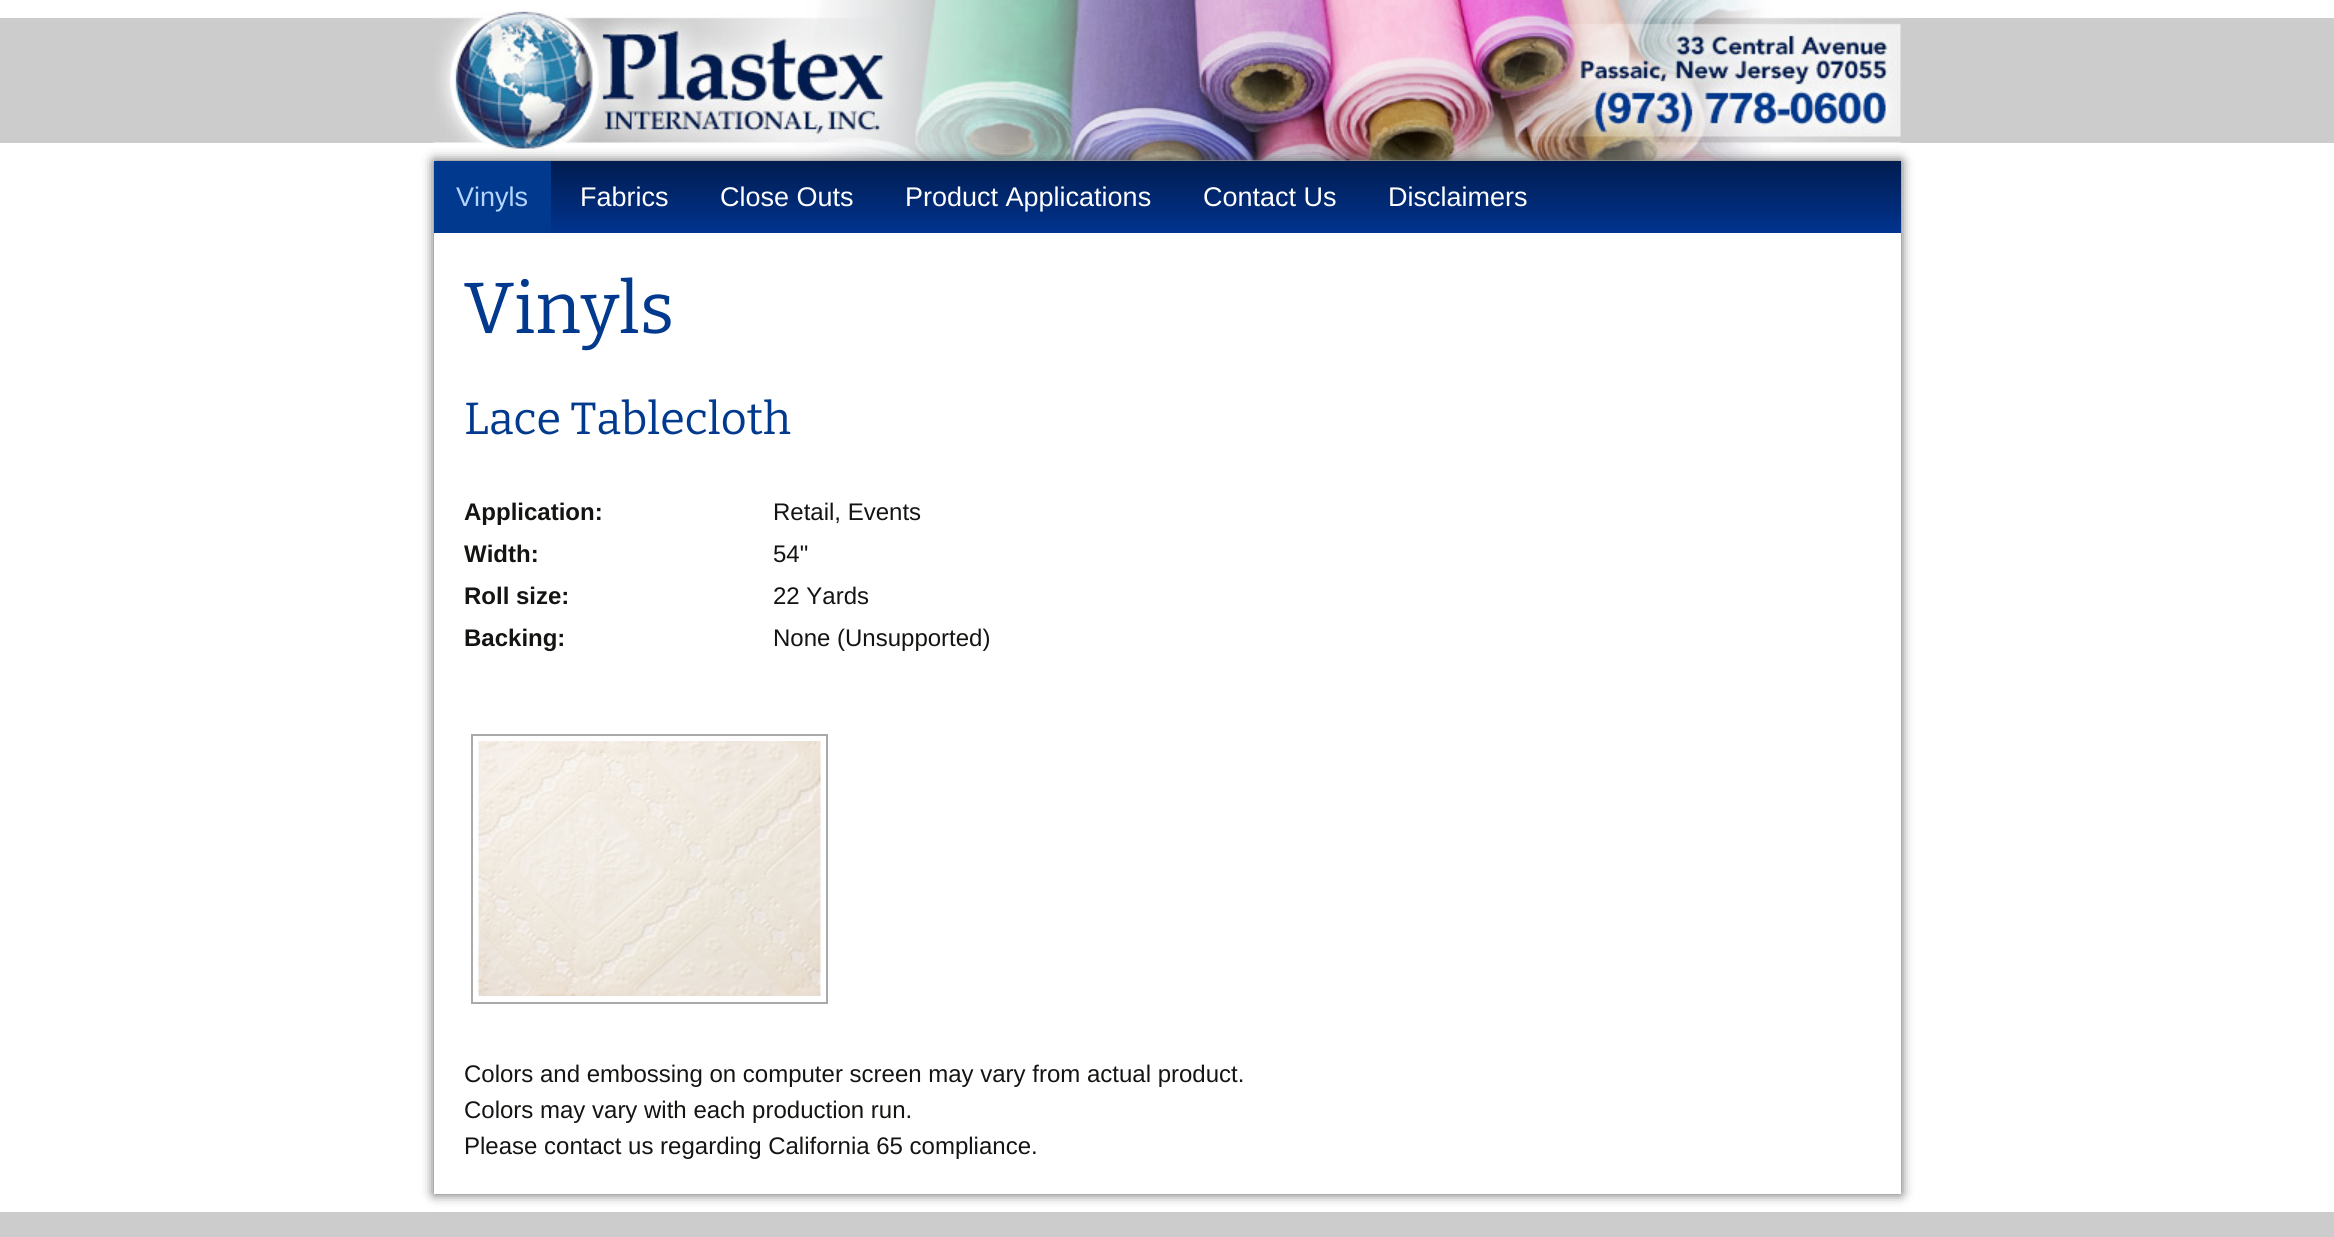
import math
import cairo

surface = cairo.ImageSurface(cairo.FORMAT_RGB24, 2334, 1237)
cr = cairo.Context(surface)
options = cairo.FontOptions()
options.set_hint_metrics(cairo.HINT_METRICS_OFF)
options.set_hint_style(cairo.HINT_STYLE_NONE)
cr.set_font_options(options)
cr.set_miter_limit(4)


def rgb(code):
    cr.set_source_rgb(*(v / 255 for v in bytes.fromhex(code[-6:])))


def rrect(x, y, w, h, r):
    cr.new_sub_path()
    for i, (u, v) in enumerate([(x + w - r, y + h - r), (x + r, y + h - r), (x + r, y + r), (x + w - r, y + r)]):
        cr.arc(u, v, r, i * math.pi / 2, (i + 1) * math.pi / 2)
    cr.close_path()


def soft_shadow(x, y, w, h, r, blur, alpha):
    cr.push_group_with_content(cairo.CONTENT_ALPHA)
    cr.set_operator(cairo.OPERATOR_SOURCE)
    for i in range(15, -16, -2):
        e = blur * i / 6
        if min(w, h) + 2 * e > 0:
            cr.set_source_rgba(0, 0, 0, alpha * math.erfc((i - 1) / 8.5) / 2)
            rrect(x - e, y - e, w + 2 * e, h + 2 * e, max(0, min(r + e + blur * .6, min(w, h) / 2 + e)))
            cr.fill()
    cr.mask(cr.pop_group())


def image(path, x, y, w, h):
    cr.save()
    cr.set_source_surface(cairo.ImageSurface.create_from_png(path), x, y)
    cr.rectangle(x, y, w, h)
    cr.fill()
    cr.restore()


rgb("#ffffff")
cr.paint()
rgb("#cccccc")
cr.rectangle(0, 18, 2334, 125)
cr.fill()
image("img/1.png", 433, 0, 1468, 161)
cr.rectangle(0, 1212, 2334, 25)
cr.fill()
cr.save()
cr.set_fill_rule(cairo.FILL_RULE_EVEN_ODD)
cr.new_path()
cr.move_to(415, 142)
cr.line_to(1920, 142)
cr.line_to(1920, 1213)
cr.line_to(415, 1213)
cr.close_path()
cr.move_to(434, 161)
cr.line_to(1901, 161)
cr.line_to(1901, 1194)
cr.line_to(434, 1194)
cr.close_path()
cr.clip()
rgb("#555555")
soft_shadow(434, 161, 1467, 1033, 0, 6, 1)
cr.restore()
gradient = cairo.LinearGradient(434, 233, 434, 161)
gradient.add_color_stop_rgba(0, 0.004, 0.2, 0.561, 1)
gradient.add_color_stop_rgba(1, 0.004, 0.11, 0.31, 1)
cr.set_source(gradient)
cr.rectangle(551, 161, 1350, 72)
cr.fill()
rgb("#00398e")
cr.rectangle(434, 161, 117, 72)
cr.fill()
cr.rectangle(472, 735, 355, 268)
rgb("#a9a9a9")
cr.stroke()
image("img/2.png", 478, 741, 343, 255)
cr.select_font_face("Liberation Sans")
cr.set_font_size(27)
rgb("#b4d5fe")
cr.move_to(456, 206)
cr.show_text("Vinyls")
rgb("#ffffff")
for x, y, s in [
    (580, 206, "Fabrics"),
    (720, 206, "Close Outs"),
    (905, 206, "Product Applications"),
    (1203, 206, "Contact Us"),
    (1388, 206, "Disclaimers"),
]:
    cr.move_to(x, y)
    cr.show_text(s)
cr.select_font_face("Bitter")
cr.set_font_size(72)
rgb("#00398d")
cr.move_to(464, 333)
cr.show_text("Vinyls")
cr.set_font_size(45)
cr.move_to(464, 434)
cr.show_text("Lace Tablecloth")
cr.select_font_face("Liberation Sans", cairo.FONT_SLANT_NORMAL, cairo.FONT_WEIGHT_BOLD)
cr.set_font_size(24)
rgb("#141412")
cr.move_to(464, 520)
cr.show_text("Application:")
cr.select_font_face("Liberation Sans")
cr.move_to(773, 520)
cr.show_text("Retail, Events")
cr.select_font_face("Liberation Sans", cairo.FONT_SLANT_NORMAL, cairo.FONT_WEIGHT_BOLD)
cr.move_to(464, 562)
cr.show_text("Width:")
cr.select_font_face("Liberation Sans")
cr.move_to(773, 562)
cr.show_text("54\"")
cr.select_font_face("Liberation Sans", cairo.FONT_SLANT_NORMAL, cairo.FONT_WEIGHT_BOLD)
cr.move_to(464, 604)
cr.show_text("Roll size:")
cr.select_font_face("Liberation Sans")
cr.move_to(773, 604)
cr.show_text("22 Yards")
cr.select_font_face("Liberation Sans", cairo.FONT_SLANT_NORMAL, cairo.FONT_WEIGHT_BOLD)
cr.move_to(464, 646)
cr.show_text("Backing:")
cr.select_font_face("Liberation Sans")
for x, y, s in [
    (773, 646, "None (Unsupported)"),
    (464, 1082, "Colors and embossing on computer screen may vary from actual product."),
    (464, 1118, "Colors may vary with each production run."),
    (464, 1154, "Please contact us regarding California 65 compliance."),
]:
    cr.move_to(x, y)
    cr.show_text(s)
surface.write_to_png("page.png")
